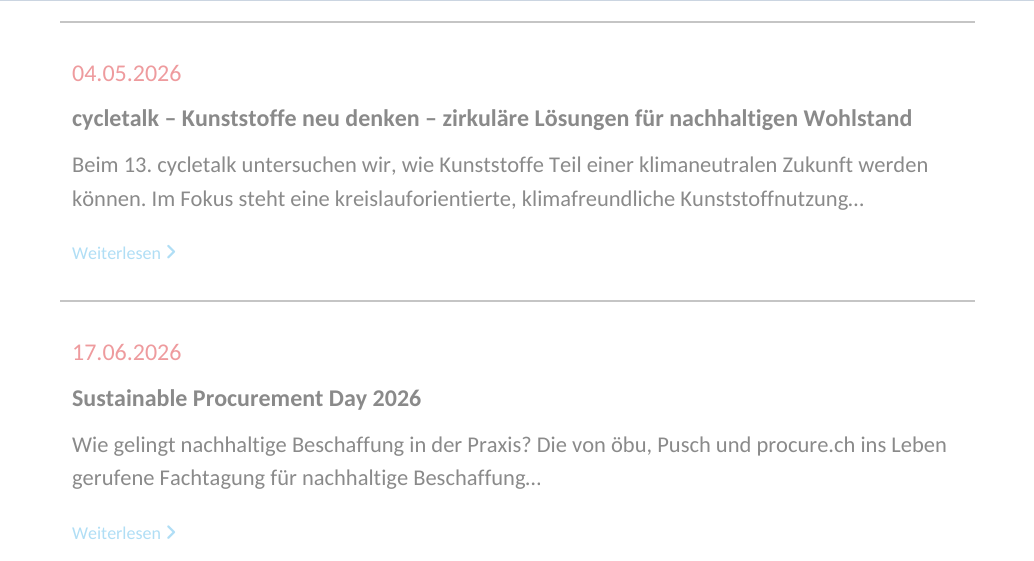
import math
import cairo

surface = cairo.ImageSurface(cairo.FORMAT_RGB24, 1034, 561)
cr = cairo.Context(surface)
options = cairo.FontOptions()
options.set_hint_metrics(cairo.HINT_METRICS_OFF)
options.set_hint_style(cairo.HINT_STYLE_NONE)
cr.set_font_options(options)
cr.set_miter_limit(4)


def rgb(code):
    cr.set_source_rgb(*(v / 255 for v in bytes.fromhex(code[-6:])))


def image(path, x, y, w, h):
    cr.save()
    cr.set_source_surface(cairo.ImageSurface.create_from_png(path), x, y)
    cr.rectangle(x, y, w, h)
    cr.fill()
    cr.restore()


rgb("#ffffff")
cr.paint()
for x, y, w, h, color in [
    (0, 0, 1034, 1, "#cbd5e1"),
    (60, 21, 915, 2, "#c5c5c5"),
    (60, 300, 915, 2, "#c5c5c5"),
]:
    rgb(color)
    cr.rectangle(x, y, w, h)
    cr.fill()
image("img/1.png", 167, 244, 9, 15)
image("img/2.png", 167, 525, 9, 14)
cr.select_font_face("Carlito")
cr.set_font_size(24)
rgb("#ee9b9e")
cr.move_to(72, 81)
cr.show_text("04.05.2026")
cr.select_font_face("Carlito", cairo.FONT_SLANT_NORMAL, cairo.FONT_WEIGHT_BOLD)
rgb("#8a8a8a")
cr.move_to(72, 126)
cr.show_text("cycletalk – Kunststoffe neu denken – zirkuläre Lösungen für nachhaltigen Wohlstand")
cr.select_font_face("Carlito")
cr.set_font_size(22.5)
cr.move_to(72, 172)
cr.show_text("Beim 13. cycletalk untersuchen wir, wie Kunststoffe Teil einer klimaneutralen Zukunft werden")
cr.move_to(72, 206)
cr.show_text("können. Im Fokus steht eine kreislauforientierte, klimafreundliche Kunststoffnutzung…")
cr.set_font_size(18)
rgb("#b0def5")
cr.move_to(72, 259)
cr.show_text("Weiterlesen")
cr.set_font_size(24)
rgb("#ee9b9e")
cr.move_to(72, 360)
cr.show_text("17.06.2026")
cr.select_font_face("Carlito", cairo.FONT_SLANT_NORMAL, cairo.FONT_WEIGHT_BOLD)
rgb("#8a8a8a")
cr.move_to(72, 406)
cr.show_text("Sustainable Procurement Day 2026")
cr.select_font_face("Carlito")
cr.set_font_size(22.5)
cr.move_to(72, 452)
cr.show_text("Wie gelingt nachhaltige Beschaffung in der Praxis? Die von öbu, Pusch und procure.ch ins Leben")
cr.move_to(72, 485)
cr.show_text("gerufene Fachtagung für nachhaltige Beschaffung…")
cr.set_font_size(18)
rgb("#b0def5")
cr.move_to(72, 539)
cr.show_text("Weiterlesen")
surface.write_to_png("page.png")
